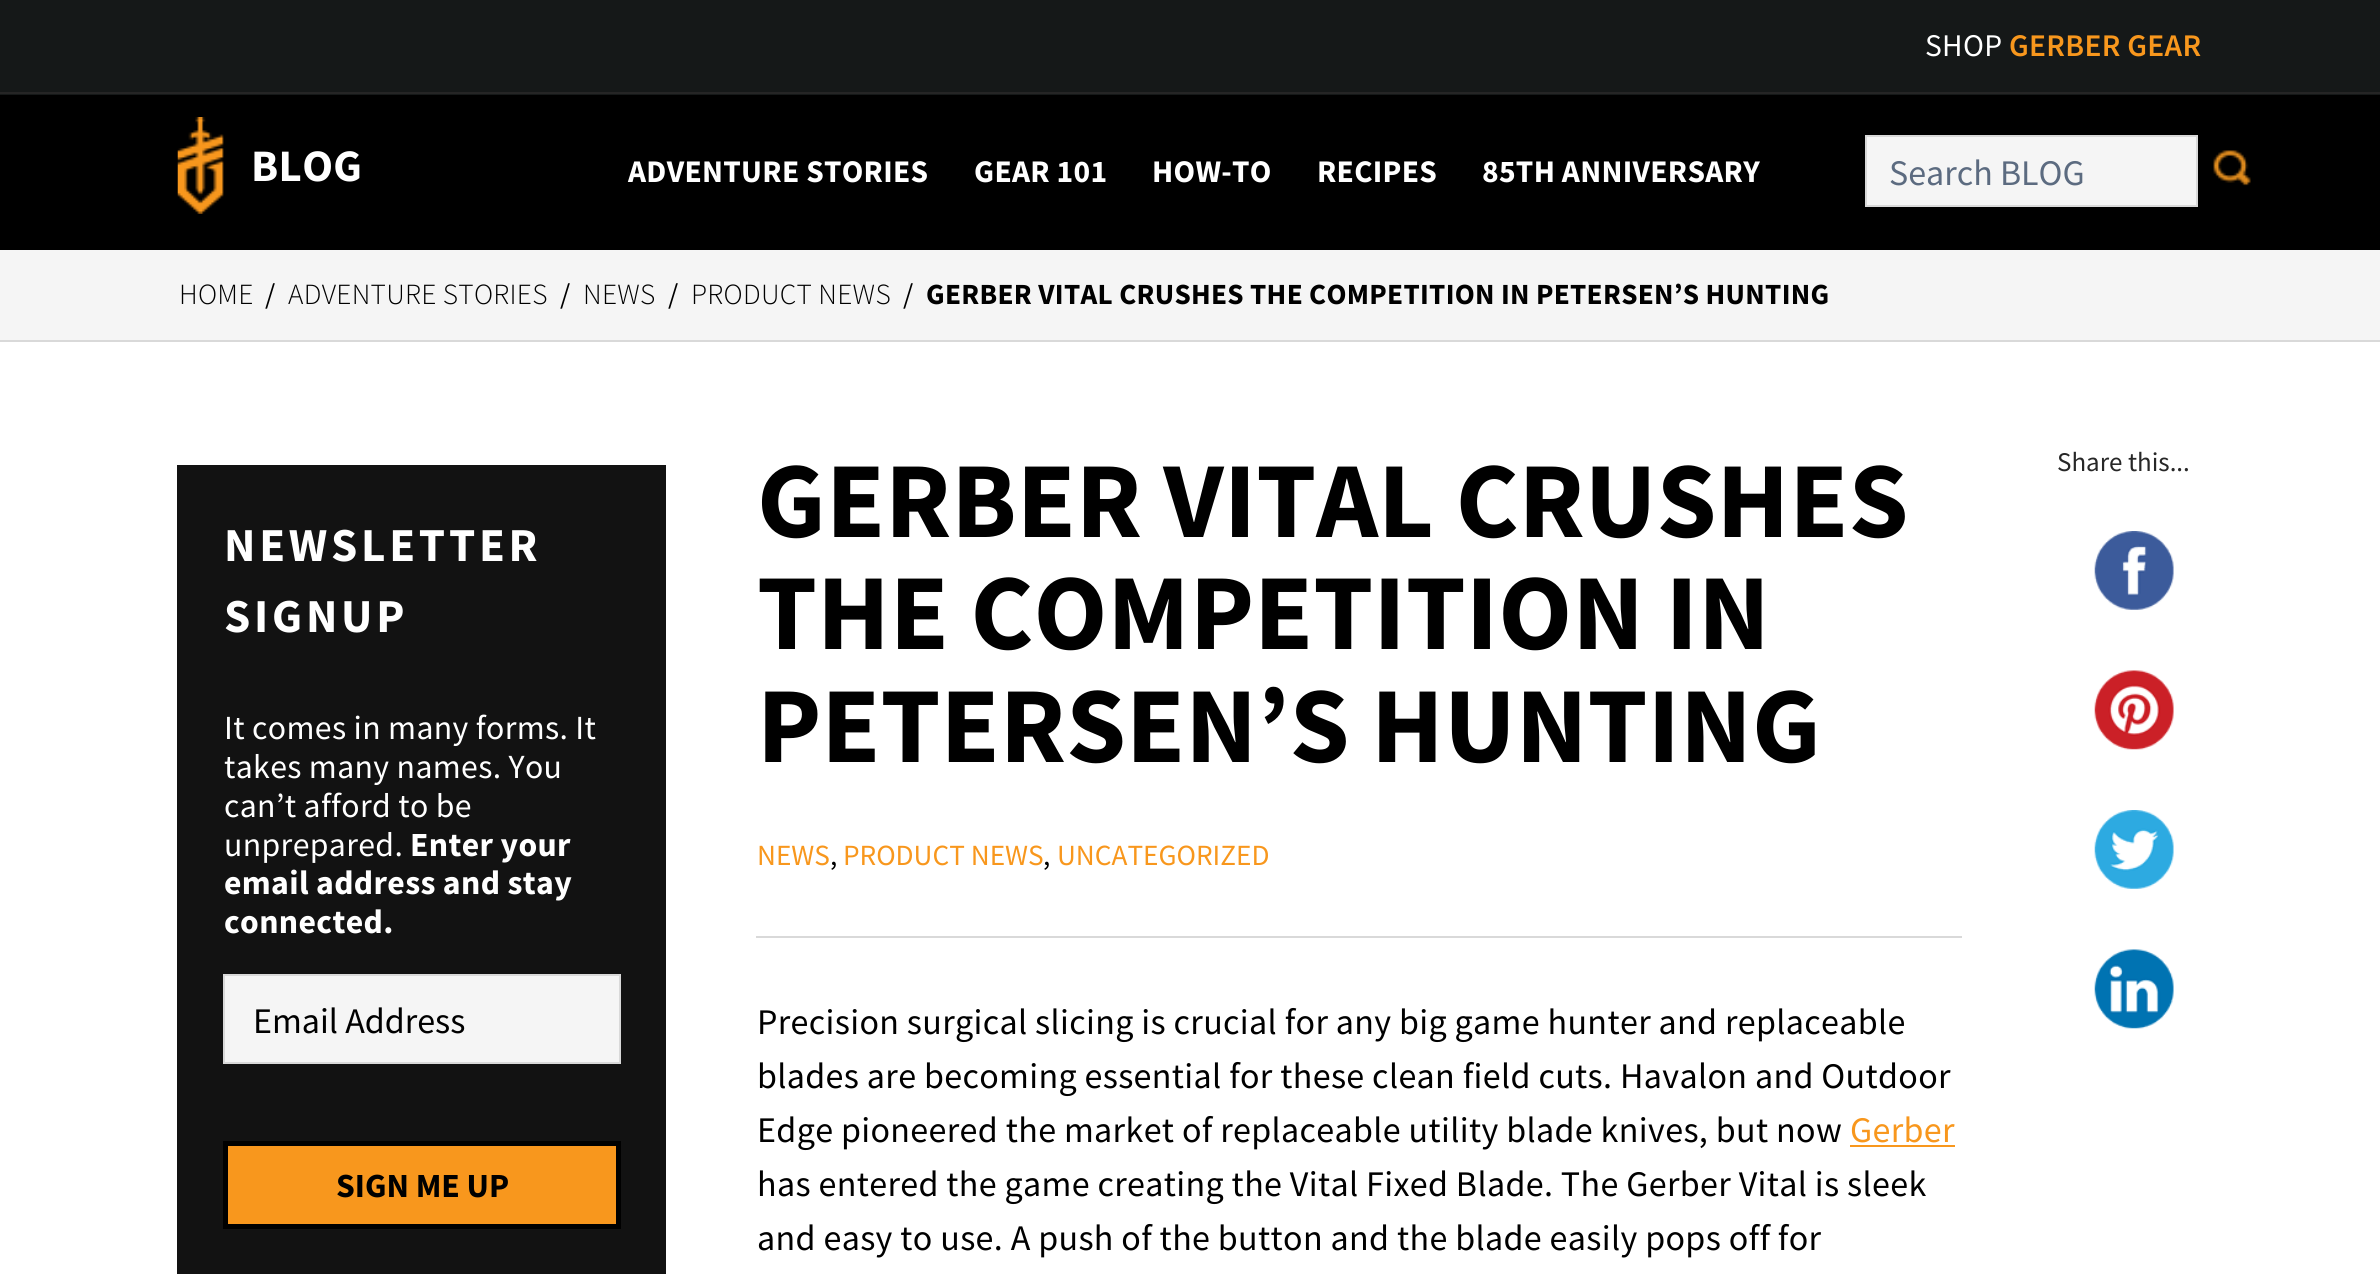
import math
import cairo

surface = cairo.ImageSurface(cairo.FORMAT_RGB24, 2380, 1280)
cr = cairo.Context(surface)
options = cairo.FontOptions()
options.set_hint_metrics(cairo.HINT_METRICS_OFF)
options.set_hint_style(cairo.HINT_STYLE_NONE)
cr.set_font_options(options)
cr.set_miter_limit(4)


def rgb(code):
    cr.set_source_rgb(*(v / 255 for v in bytes.fromhex(code[-6:])))


def tracked(x, y, s, letter, word):
    cr.move_to(x, y)
    for ch in s:
        cr.show_text(ch)
        cr.rel_move_to(letter + word * (ch == ' '), 0)


def image(path, x, y, w, h):
    cr.save()
    cr.set_source_surface(cairo.ImageSurface.create_from_png(path), x, y)
    cr.rectangle(x, y, w, h)
    cr.fill()
    cr.restore()


rgb("#ffffff")
cr.paint()
for x, y, w, h, color in [
    (0, 95, 2380, 155, "#000000"),
    (0, 0, 2380, 95, "#151818"),
    (0, 92, 2380, 2, "#252525"),
]:
    rgb(color)
    cr.rectangle(x, y, w, h)
    cr.fill()
image("img/1.png", 177, 117, 47, 97)
rgb("#f5f5f5")
cr.rectangle(1866, 136, 331, 70)
cr.fill_preserve()
rgb("#d9d9d9")
cr.stroke()
image("img/2.png", 2213, 150, 38, 36)
for x, y, w, h, color in [
    (0, 250, 2380, 90, "#f5f5f5"),
    (0, 340, 2380, 2, "#d9d9d9"),
    (177, 465, 489, 809, "#121212"),
]:
    rgb(color)
    cr.rectangle(x, y, w, h)
    cr.fill()
rgb("#f5f5f5")
cr.rectangle(224, 975, 396, 88)
cr.fill_preserve()
rgb("#d9d9d9")
cr.stroke()
rgb("#f8971d")
cr.rectangle(225.5, 1143.5, 393, 83)
cr.fill_preserve()
rgb("#000000")
cr.set_line_width(5)
cr.stroke()
image("img/3.png", 2094, 531, 80, 79)
image("img/4.png", 2094, 670, 80, 80)
image("img/5.png", 2094, 810, 80, 79)
image("img/6.png", 2094, 949, 80, 80)
rgb("#d9d9d9")
cr.rectangle(756, 936, 1206, 2)
cr.fill()
rgb("#f8971d")
cr.rectangle(1850, 1145, 105, 2)
cr.fill()
cr.select_font_face("Source Sans Pro")
cr.set_font_size(31.5)
rgb("#ffffff")
tracked(1925, 56, "SHOP", 0.3, 0)
cr.select_font_face("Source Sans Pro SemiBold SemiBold")
rgb("#f8971d")
tracked(2009, 56, "GERBER GEAR", 0.3, 0)
cr.select_font_face("Source Sans Pro", cairo.FONT_SLANT_NORMAL, cairo.FONT_WEIGHT_BOLD)
cr.set_font_size(45)
rgb("#ffffff")
tracked(251, 181, "BLOG", 0.35, 0)
cr.set_font_size(31.5)
for x, y, s in [
    (628, 182, "ADVENTURE STORIES"),
    (974, 182, "GEAR 101"),
    (1152, 182, "HOW-TO"),
    (1317, 182, "RECIPES"),
    (1482, 182, "85TH ANNIVERSARY"),
]:
    tracked(x, y, s, 0.3, 0)
cr.select_font_face("Source Sans Pro")
cr.set_font_size(36)
rgb("#5c6b80")
cr.move_to(1889, 185)
cr.show_text("Search BLOG")
cr.select_font_face("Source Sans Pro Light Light")
cr.set_font_size(29.25)
rgb("#000000")
tracked(179, 304, "HOME", 0.3, 0)
cr.select_font_face("Source Sans Pro")
tracked(265, 304, "/", 0.3, 0)
cr.select_font_face("Source Sans Pro Light Light")
tracked(288, 304, "ADVENTURE STORIES", 0.3, 0)
cr.select_font_face("Source Sans Pro")
tracked(560, 304, "/", 0.3, 0)
cr.select_font_face("Source Sans Pro Light Light")
tracked(583, 304, "NEWS", 0.3, 0)
cr.select_font_face("Source Sans Pro")
tracked(668, 304, "/", 0.3, 0)
cr.select_font_face("Source Sans Pro Light Light")
tracked(691, 304, "PRODUCT NEWS", 0.3, 0)
cr.select_font_face("Source Sans Pro")
tracked(903, 304, "/", 0.3, 0)
cr.select_font_face("Source Sans Pro", cairo.FONT_SLANT_NORMAL, cairo.FONT_WEIGHT_BOLD)
tracked(926, 304, "GERBER VITAL CRUSHES THE COMPETITION IN PETERSEN’S HUNTING", 0.3, 0)
cr.set_font_size(47.25)
rgb("#ffffff")
tracked(224, 561, "NEWSLETTER", 3.75, 0)
tracked(224, 632, "SIGNUP", 3.75, 0)
cr.select_font_face("Source Sans Pro")
cr.set_font_size(33.75)
for x, y, s in [
    (224, 739, "It comes in many forms. It"),
    (224, 778, "takes many names. You"),
    (224, 817, "can’t afford to be"),
    (224, 856, "unprepared."),
]:
    tracked(x, y, s, 0.35, 0)
cr.select_font_face("Source Sans Pro", cairo.FONT_SLANT_NORMAL, cairo.FONT_WEIGHT_BOLD)
for x, y, s in [
    (410, 856, "Enter your"),
    (224, 894, "email address and stay"),
    (224, 933, "connected."),
]:
    tracked(x, y, s, 0.35, 0)
cr.select_font_face("Source Sans Pro")
cr.set_font_size(36)
rgb("#000000")
cr.move_to(253, 1033)
cr.show_text("Email Address")
cr.select_font_face("Source Sans Pro", cairo.FONT_SLANT_NORMAL, cairo.FONT_WEIGHT_BOLD)
cr.set_font_size(33.75)
cr.move_to(336, 1197)
cr.show_text("SIGN ME UP")
cr.select_font_face("Source Sans Pro")
cr.set_font_size(27)
rgb("#272727")
cr.move_to(2057, 471)
cr.show_text("Share this...")
cr.select_font_face("Source Sans Pro", cairo.FONT_SLANT_NORMAL, cairo.FONT_WEIGHT_BOLD)
cr.set_font_size(108)
rgb("#000000")
for x, y, s in [
    (757, 537, "GERBER VITAL CRUSHES"),
    (757, 649, "THE COMPETITION IN"),
    (757, 762, "PETERSEN’S HUNTING"),
]:
    cr.move_to(x, y)
    cr.show_text(s)
cr.select_font_face("Source Sans Pro")
cr.set_font_size(29.25)
rgb("#f8971d")
cr.move_to(757, 865)
cr.show_text("NEWS")
rgb("#000000")
cr.move_to(830, 865)
cr.show_text(",")
rgb("#f8971d")
cr.move_to(843, 865)
cr.show_text("PRODUCT NEWS")
rgb("#000000")
cr.move_to(1043, 865)
cr.show_text(",")
rgb("#f8971d")
cr.move_to(1057, 865)
cr.show_text("UNCATEGORIZED")
cr.set_font_size(36)
rgb("#000000")
for x, y, s in [
    (757, 1034, "Precision surgical slicing is crucial for any big game hunter and replaceable"),
    (757, 1088, "blades are becoming essential for these clean field cuts. Havalon and Outdoor"),
    (757, 1142, "Edge pioneered the market of replaceable utility blade knives, but now"),
]:
    tracked(x, y, s, 0.35, 0)
rgb("#f8971d")
tracked(1850, 1142, "Gerber", 0.35, 0)
rgb("#000000")
tracked(757, 1196, "has entered the game creating the Vital Fixed Blade. The Gerber Vital is sleek", 0.35, 0)
tracked(757, 1250, "and easy to use. A push of the button and the blade easily pops off for", 0.35, 0)
surface.write_to_png("page.png")
